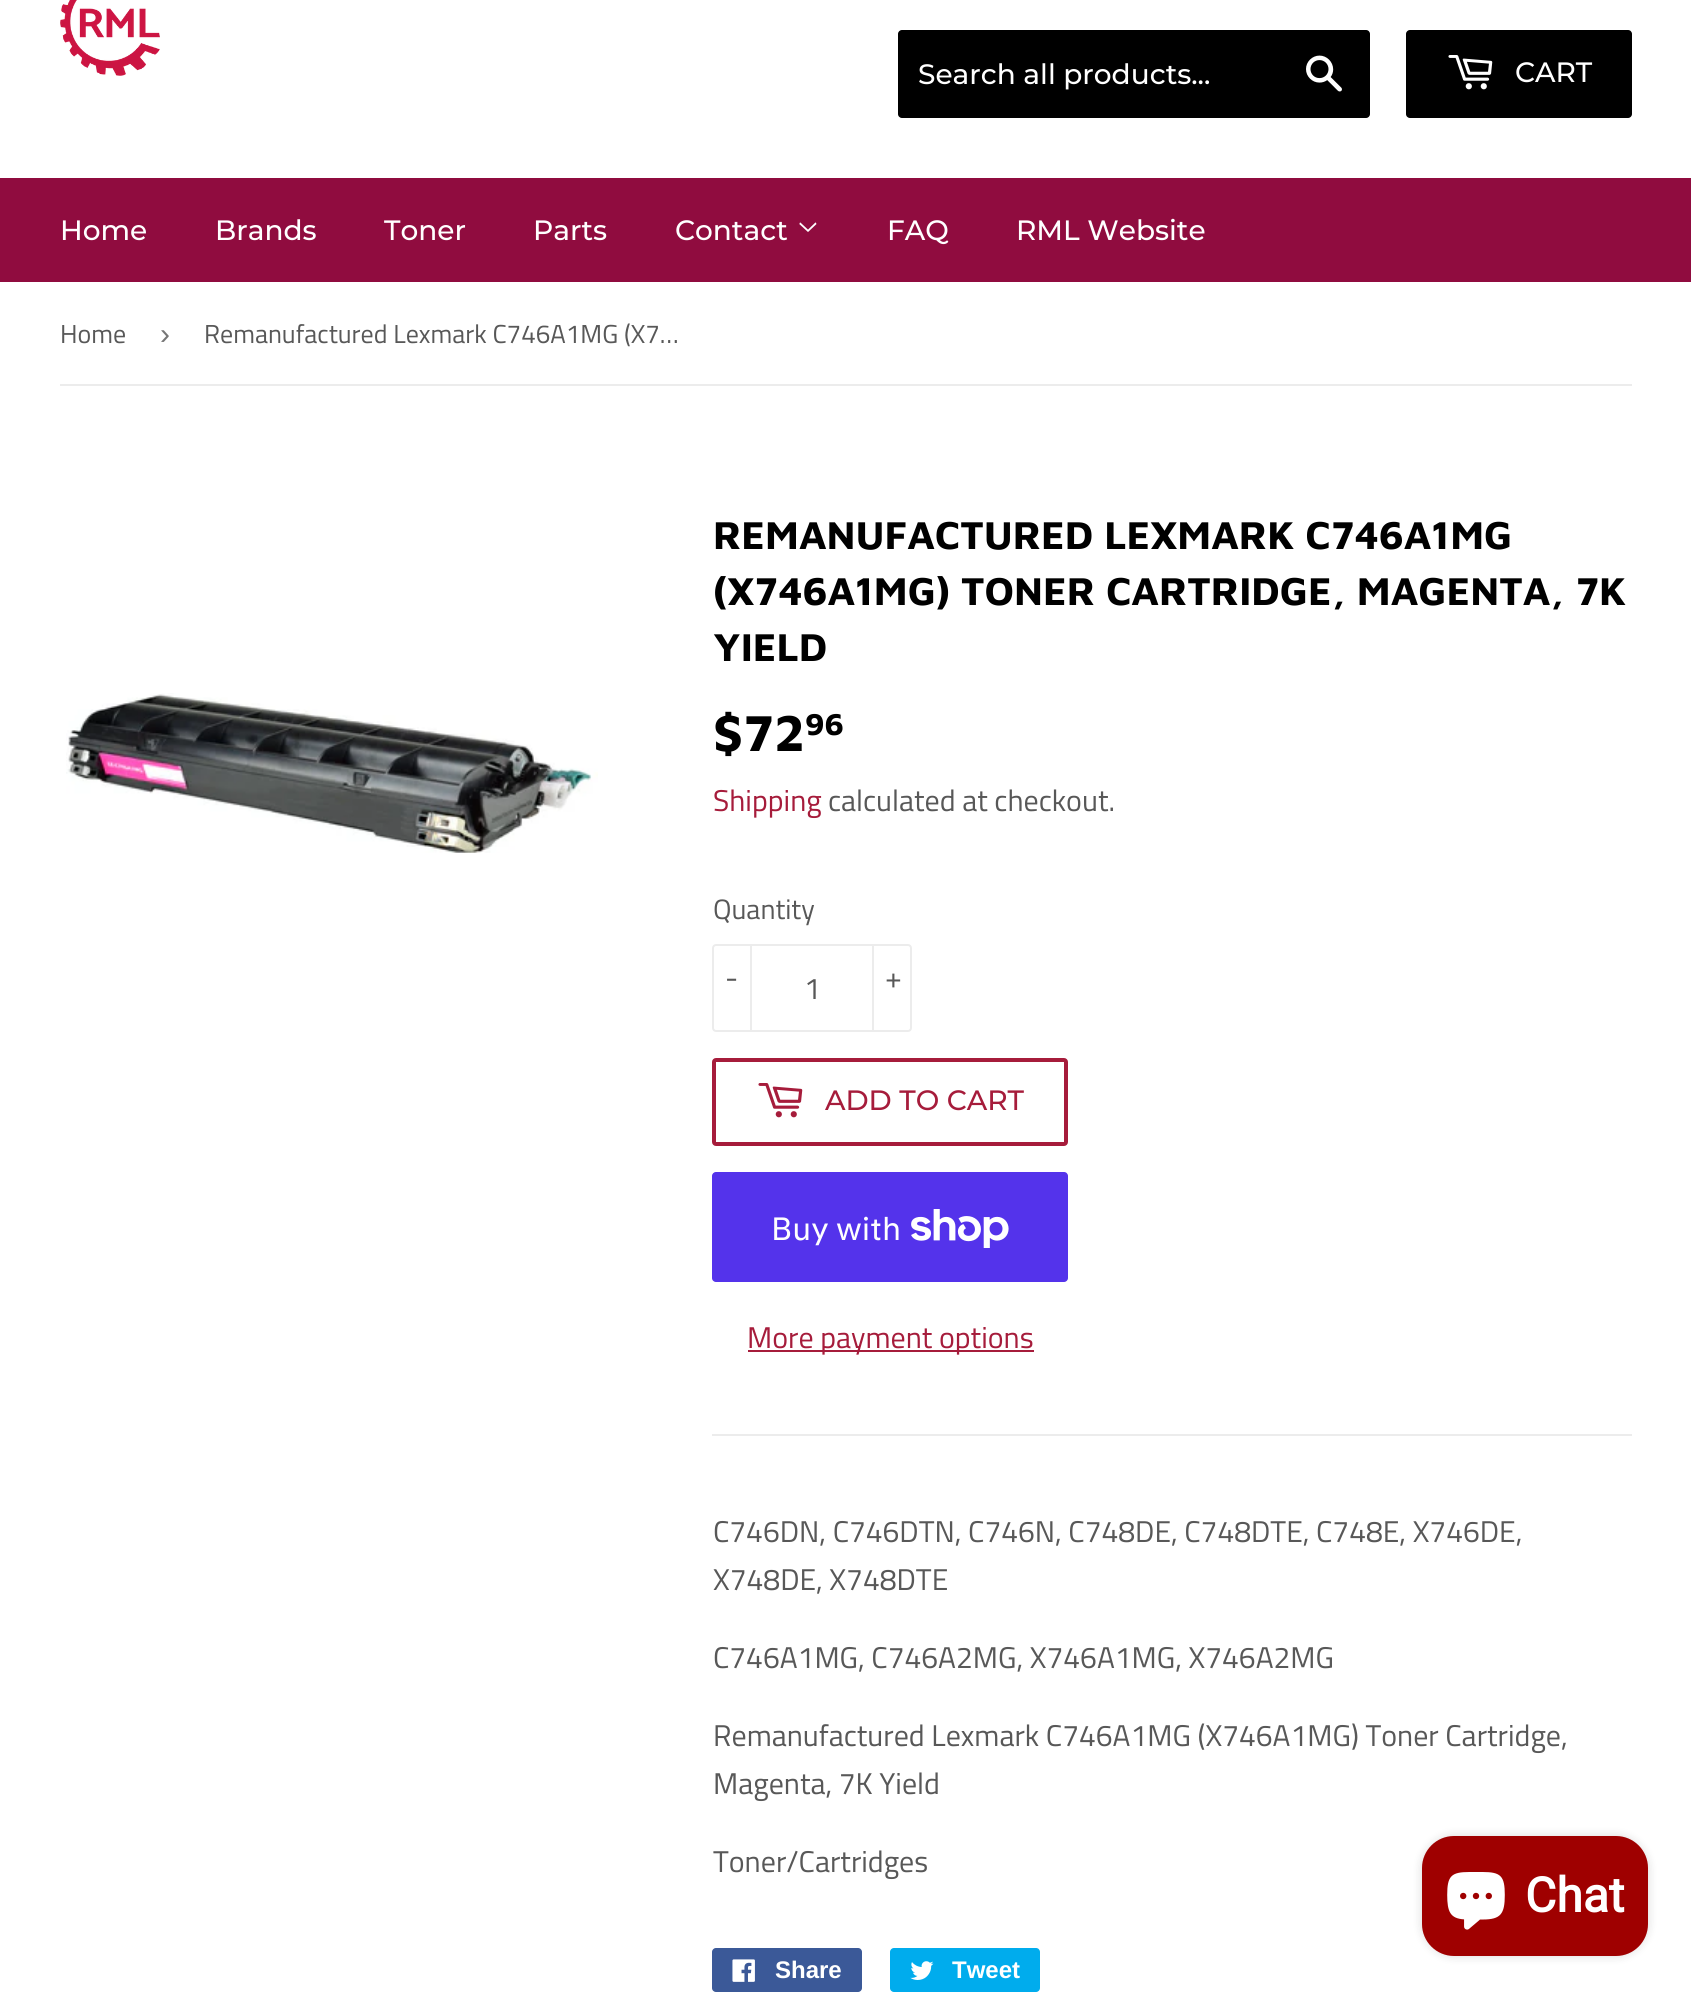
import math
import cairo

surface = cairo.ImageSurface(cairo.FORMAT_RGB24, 1691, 1997)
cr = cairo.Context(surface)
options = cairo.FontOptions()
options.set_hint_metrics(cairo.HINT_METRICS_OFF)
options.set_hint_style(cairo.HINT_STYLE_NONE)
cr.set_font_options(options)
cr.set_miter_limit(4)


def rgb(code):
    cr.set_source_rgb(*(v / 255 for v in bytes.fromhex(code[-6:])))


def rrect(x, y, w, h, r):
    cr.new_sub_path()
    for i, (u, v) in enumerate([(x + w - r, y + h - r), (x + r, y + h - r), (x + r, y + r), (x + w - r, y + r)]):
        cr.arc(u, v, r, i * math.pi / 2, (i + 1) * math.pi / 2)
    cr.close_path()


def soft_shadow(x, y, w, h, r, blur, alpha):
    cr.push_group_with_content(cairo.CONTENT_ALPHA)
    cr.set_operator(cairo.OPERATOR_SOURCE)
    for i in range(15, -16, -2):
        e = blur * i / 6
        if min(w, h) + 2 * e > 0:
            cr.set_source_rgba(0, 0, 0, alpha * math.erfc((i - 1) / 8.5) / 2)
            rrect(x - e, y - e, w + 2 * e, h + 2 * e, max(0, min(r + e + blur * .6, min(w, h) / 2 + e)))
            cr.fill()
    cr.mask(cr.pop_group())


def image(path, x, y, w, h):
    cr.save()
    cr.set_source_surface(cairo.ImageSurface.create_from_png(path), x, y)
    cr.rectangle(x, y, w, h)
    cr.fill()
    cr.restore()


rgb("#ffffff")
cr.paint()
image("img/1.png", 60, 0, 100, 76)
rgb("#000000")
rrect(898, 30, 472, 88, 4)
cr.fill()
image("img/2.png", 1306, 55, 36, 37)
rrect(1406, 30, 226, 88, 4)
cr.fill()
image("img/3.png", 1448, 55, 45, 35)
rgb("#900c3f")
cr.rectangle(0, 178, 1691, 104)
cr.fill()
image("img/4.png", 799, 222, 18, 10)
rgb("#ececec")
cr.rectangle(60, 384, 1572, 2)
cr.fill()
image("img/5.png", 66, 693, 532, 160)
rrect(713, 945, 198, 86, 3)
cr.stroke()
cr.rectangle(750, 944, 2, 88)
cr.fill()
cr.rectangle(872, 944, 2, 88)
cr.fill()
rrect(714, 1060, 352, 84, 2)
rgb("#a61c3b")
cr.set_line_width(4)
cr.stroke()
image("img/6.png", 758, 1083, 45, 35)
rgb("#5433eb")
rrect(712, 1172, 356, 110, 4)
cr.fill()
image("img/7.png", 911, 1209, 98, 39)
rgb("#a61c3b")
cr.rectangle(748, 1350, 286, 2)
cr.fill()
rgb("#ececec")
cr.rectangle(712, 1434, 920, 2)
cr.fill()
rgb("#3b5998")
rrect(712, 1948, 150, 44, 4)
cr.fill()
image("img/8.png", 732, 1959, 23, 23)
rgb("#00aced")
rrect(890, 1948, 150, 44, 4)
cr.fill()
image("img/9.png", 910, 1961, 24, 19)
rgb("#000000")
soft_shadow(1422, 1836, 226, 120, 32, 5, 0.15)
rgb("#9f0000")
rrect(1422, 1836, 226, 120, 32)
cr.fill()
image("img/10.png", 1447, 1872, 58, 58)
cr.select_font_face("Montserrat Medium")
cr.set_font_size(28)
rgb("#ffffff")
for x, y, s in [
    (918, 84, "Search all products..."),
    (1515, 82, "CART"),
    (60, 240, "Home"),
    (215, 240, "Brands"),
    (384, 240, "Toner"),
    (533, 240, "Parts"),
    (675, 240, "Contact"),
    (887, 240, "FAQ"),
    (1016, 240, "RML Website"),
]:
    cr.move_to(x, y)
    cr.show_text(s)
cr.select_font_face("Titillium Web")
cr.set_font_size(26)
rgb("#585858")
cr.move_to(60, 343)
cr.show_text("Home")
cr.select_font_face("Liberation Sans")
cr.set_font_size(30)
rgb("#767676")
cr.move_to(160, 344)
cr.show_text("›")
cr.select_font_face("Titillium Web")
cr.set_font_size(26)
rgb("#585858")
cr.move_to(204, 343)
cr.show_text("Remanufactured Lexmark C746A1MG (X7…")
cr.select_font_face("Maven Pro", cairo.FONT_SLANT_NORMAL, cairo.FONT_WEIGHT_BOLD)
cr.set_font_size(40)
rgb("#000000")
for x, y, s in [
    (713, 549, "REMANUFACTURED LEXMARK C746A1MG"),
    (713, 605, "(X746A1MG) TONER CARTRIDGE, MAGENTA, 7K"),
    (713, 661, "YIELD"),
]:
    cr.move_to(x, y)
    cr.show_text(s)
cr.set_font_size(52)
cr.move_to(713, 751)
cr.show_text("$72")
cr.set_font_size(31)
cr.move_to(805, 735)
cr.show_text("96")
cr.select_font_face("Titillium Web")
cr.set_font_size(30)
rgb("#a61c3b")
cr.move_to(713, 811)
cr.show_text("Shipping")
rgb("#585858")
cr.move_to(828, 811)
cr.show_text("calculated at checkout.")
cr.set_font_size(28)
cr.move_to(713, 919)
cr.show_text("Quantity")
cr.set_font_size(30)
for x, y, s in [
    (725, 988, "-"),
    (804, 999, "1"),
    (885, 988, "+"),
]:
    cr.move_to(x, y)
    cr.show_text(s)
cr.select_font_face("Montserrat Medium")
cr.set_font_size(28)
rgb("#a61c3b")
cr.move_to(825, 1110)
cr.show_text("ADD TO CART")
cr.select_font_face("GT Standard")
cr.set_font_size(32)
rgb("#ffffff")
cr.move_to(771, 1240)
cr.show_text("Buy with")
cr.select_font_face("Titillium Web")
cr.set_font_size(30)
rgb("#a61c3b")
cr.move_to(747, 1348)
cr.show_text("More payment options")
rgb("#585858")
for x, y, s in [
    (713, 1542, "C746DN, C746DTN, C746N, C748DE, C748DTE, C748E, X746DE,"),
    (713, 1590, "X748DE, X748DTE"),
    (713, 1668, "C746A1MG, C746A2MG, X746A1MG, X746A2MG"),
    (713, 1746, "Remanufactured Lexmark C746A1MG (X746A1MG) Toner Cartridge,"),
    (713, 1794, "Magenta, 7K Yield"),
    (713, 1872, "Toner/Cartridges"),
]:
    cr.move_to(x, y)
    cr.show_text(s)
cr.select_font_face("Liberation Sans", cairo.FONT_SLANT_NORMAL, cairo.FONT_WEIGHT_BOLD)
cr.set_font_size(24)
rgb("#ffffff")
cr.move_to(775, 1978)
cr.show_text("Share")
cr.move_to(952, 1978)
cr.show_text("Tweet")
cr.select_font_face("Roboto", cairo.FONT_SLANT_NORMAL, cairo.FONT_WEIGHT_BOLD)
cr.set_font_size(48)
cr.move_to(1525, 1912)
cr.show_text("Chat")
surface.write_to_png("page.png")
